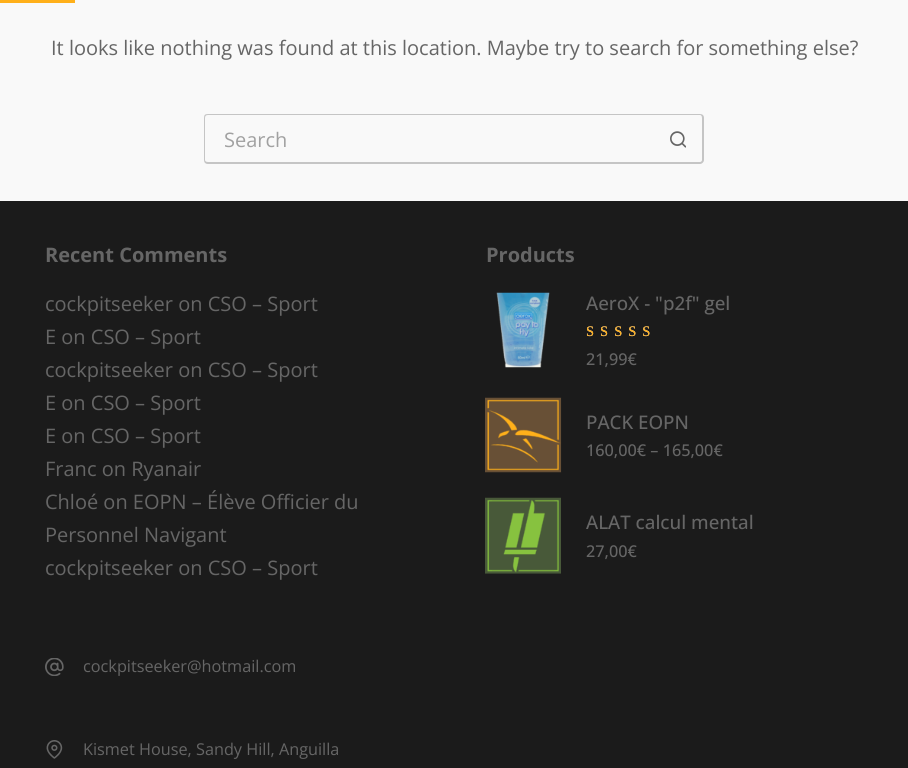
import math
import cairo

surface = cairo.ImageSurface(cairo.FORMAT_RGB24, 908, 768)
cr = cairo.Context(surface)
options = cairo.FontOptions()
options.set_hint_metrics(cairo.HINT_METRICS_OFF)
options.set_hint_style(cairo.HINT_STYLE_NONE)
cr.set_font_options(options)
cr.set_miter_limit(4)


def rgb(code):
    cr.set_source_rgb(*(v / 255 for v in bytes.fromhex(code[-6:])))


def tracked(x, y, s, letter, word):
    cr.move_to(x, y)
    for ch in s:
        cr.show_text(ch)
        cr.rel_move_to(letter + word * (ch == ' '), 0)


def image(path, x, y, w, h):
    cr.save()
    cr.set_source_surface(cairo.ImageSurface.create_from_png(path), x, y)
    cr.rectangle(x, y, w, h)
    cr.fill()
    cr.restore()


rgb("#f9f9f9")
cr.paint()
rgb("#ffb01a")
cr.rectangle(0, 0, 75, 3)
cr.fill()
rgb("#c5c5c5")
cr.set_fill_rule(cairo.FILL_RULE_EVEN_ODD)
cr.new_path()
cr.move_to(208, 114)
cr.line_to(654, 114)
cr.line_to(654, 164)
cr.line_to(208, 164)
cr.curve_to(205, 164, 204, 162, 204, 160)
cr.line_to(204, 118)
cr.curve_to(204, 115, 205, 114, 208, 114)
cr.close_path()
cr.move_to(208, 115)
cr.line_to(654, 115)
cr.line_to(654, 162)
cr.line_to(208, 162)
cr.curve_to(206, 162, 205, 161, 205, 160)
cr.line_to(205, 118)
cr.curve_to(205, 116, 206, 115, 208, 115)
cr.close_path()
cr.fill()
cr.new_path()
cr.move_to(654, 114)
cr.line_to(700, 114)
cr.curve_to(702, 114, 704, 115, 704, 118)
cr.line_to(704, 160)
cr.curve_to(704, 162, 702, 164, 700, 164)
cr.line_to(654, 164)
cr.close_path()
cr.move_to(654, 115)
cr.line_to(700, 115)
cr.curve_to(701, 115, 702, 116, 702, 118)
cr.line_to(702, 160)
cr.curve_to(702, 161, 701, 162, 700, 162)
cr.line_to(654, 162)
cr.close_path()
cr.fill()
image("img/1.png", 670, 131, 16, 17)
rgb("#1b1b1b")
cr.rectangle(0, 201, 908, 567)
cr.fill()
image("img/2.png", 496, 292, 54, 76)
image("img/3.png", 485, 397, 77, 76)
image("img/4.png", 485, 497, 76, 77)
image("img/5.png", 45, 658, 19, 18)
image("img/6.png", 46, 740, 17, 19)
cr.select_font_face("Open Sans")
cr.set_font_size(20)
rgb("#666666")
cr.move_to(51, 55)
cr.show_text("It looks like nothing was found at this location. Maybe try to search for something else?")
rgb("#a1a1a1")
cr.move_to(224, 147)
cr.show_text("Search")
cr.select_font_face("Open Sans", cairo.FONT_SLANT_NORMAL, cairo.FONT_WEIGHT_BOLD)
rgb("#666666")
cr.move_to(45, 262)
cr.show_text("Recent Comments")
cr.select_font_face("Open Sans")
for x, y, s in [
    (45, 311, "cockpitseeker on CSO – Sport"),
    (45, 344, "E on CSO – Sport"),
    (45, 377, "cockpitseeker on CSO – Sport"),
    (45, 410, "E on CSO – Sport"),
    (45, 443, "E on CSO – Sport"),
    (45, 476, "Franc on Ryanair"),
    (45, 509, "Chloé on EOPN – Élève Officier du"),
    (45, 542, "Personnel Navigant"),
    (45, 575, "cockpitseeker on CSO – Sport"),
]:
    cr.move_to(x, y)
    cr.show_text(s)
cr.select_font_face("Open Sans", cairo.FONT_SLANT_NORMAL, cairo.FONT_WEIGHT_BOLD)
cr.move_to(486, 262)
cr.show_text("Products")
cr.select_font_face("Open Sans Medium")
cr.set_font_size(18.75)
cr.move_to(586, 310)
cr.show_text("AeroX - \"p2f\" gel")
cr.select_font_face("Liberation Serif")
cr.set_font_size(14.5)
rgb("#f9dfcc")
tracked(586, 336, "SSSSS", 6, 0)
rgb("#ffb01a")
tracked(586, 336, "SSSSS", 6, 0)
cr.select_font_face("Open Sans Medium")
cr.set_font_size(16.25)
rgb("#666666")
cr.move_to(586, 365)
cr.show_text("21,99€")
cr.set_font_size(18.75)
cr.move_to(586, 429)
cr.show_text("PACK EOPN")
cr.set_font_size(16.25)
cr.move_to(586, 456)
cr.show_text("160,00€ – 165,00€")
cr.set_font_size(18.75)
cr.move_to(586, 529)
cr.show_text("ALAT calcul mental")
cr.set_font_size(16.25)
cr.move_to(586, 557)
cr.show_text("27,00€")
cr.select_font_face("Open Sans")
cr.move_to(83, 672)
cr.show_text("cockpitseeker@hotmail.com")
cr.move_to(83, 755)
cr.show_text("Kismet House, Sandy Hill, Anguilla")
surface.write_to_png("page.png")
